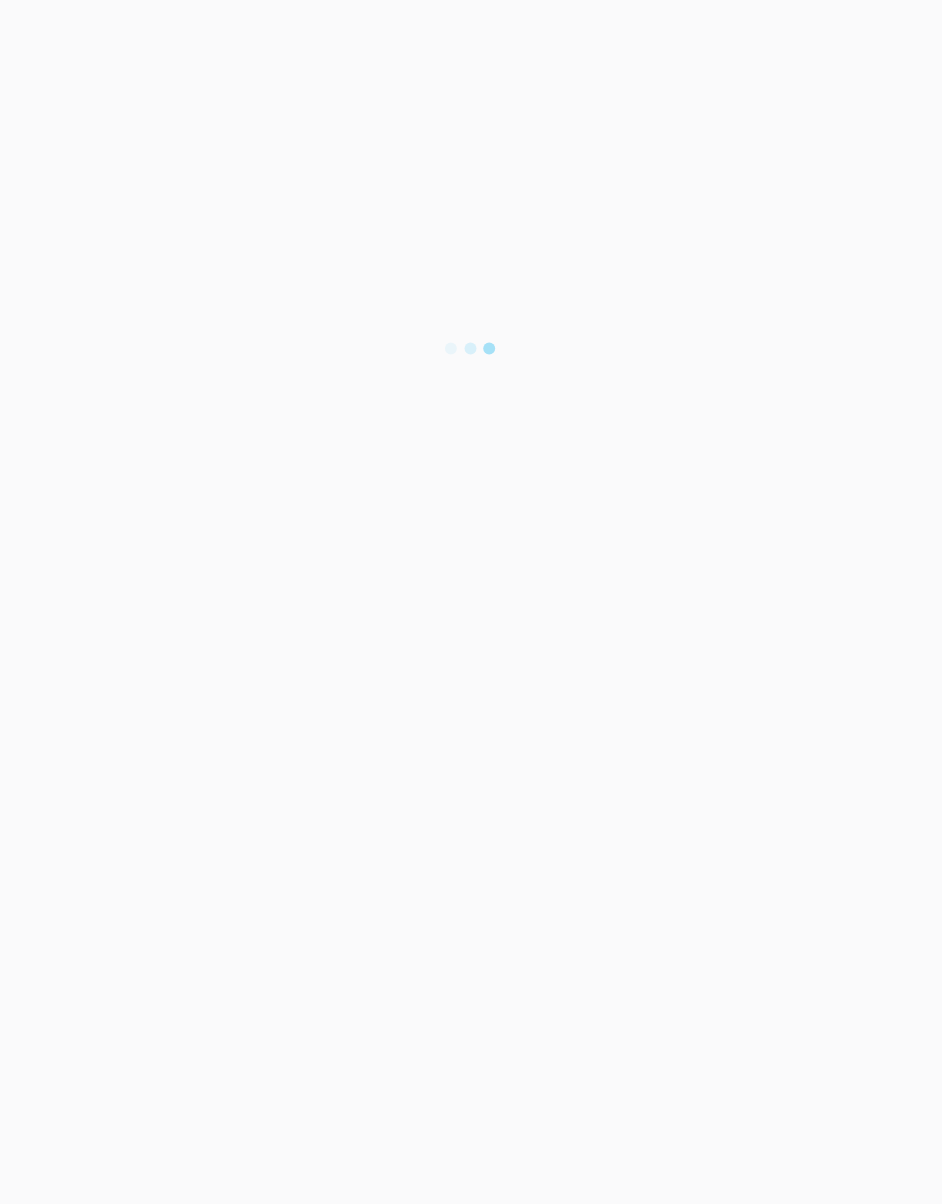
import math
import cairo

surface = cairo.ImageSurface(cairo.FORMAT_RGB24, 942, 1204)
cr = cairo.Context(surface)
options = cairo.FontOptions()
options.set_hint_metrics(cairo.HINT_METRICS_OFF)
options.set_hint_style(cairo.HINT_STYLE_NONE)
cr.set_font_options(options)
cr.set_miter_limit(4)


def rgb(code):
    cr.set_source_rgb(*(v / 255 for v in bytes.fromhex(code[-6:])))


def image(path, x, y, w, h):
    cr.save()
    cr.set_source_surface(cairo.ImageSurface.create_from_png(path), x, y)
    cr.rectangle(x, y, w, h)
    cr.fill()
    cr.restore()


rgb("#fafafb")
cr.paint()
image("img/1.png", 445, 342, 51, 13)
surface.write_to_png("page.png")
